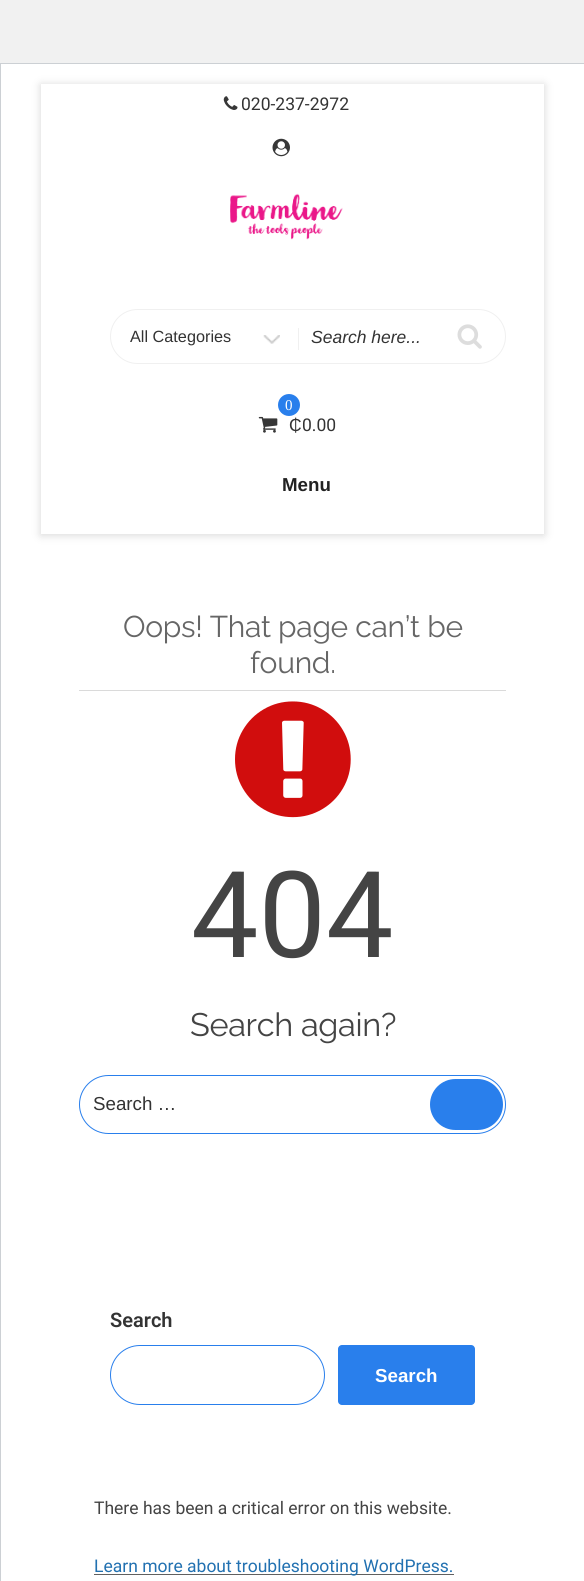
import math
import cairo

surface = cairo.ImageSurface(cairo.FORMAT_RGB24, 584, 1581)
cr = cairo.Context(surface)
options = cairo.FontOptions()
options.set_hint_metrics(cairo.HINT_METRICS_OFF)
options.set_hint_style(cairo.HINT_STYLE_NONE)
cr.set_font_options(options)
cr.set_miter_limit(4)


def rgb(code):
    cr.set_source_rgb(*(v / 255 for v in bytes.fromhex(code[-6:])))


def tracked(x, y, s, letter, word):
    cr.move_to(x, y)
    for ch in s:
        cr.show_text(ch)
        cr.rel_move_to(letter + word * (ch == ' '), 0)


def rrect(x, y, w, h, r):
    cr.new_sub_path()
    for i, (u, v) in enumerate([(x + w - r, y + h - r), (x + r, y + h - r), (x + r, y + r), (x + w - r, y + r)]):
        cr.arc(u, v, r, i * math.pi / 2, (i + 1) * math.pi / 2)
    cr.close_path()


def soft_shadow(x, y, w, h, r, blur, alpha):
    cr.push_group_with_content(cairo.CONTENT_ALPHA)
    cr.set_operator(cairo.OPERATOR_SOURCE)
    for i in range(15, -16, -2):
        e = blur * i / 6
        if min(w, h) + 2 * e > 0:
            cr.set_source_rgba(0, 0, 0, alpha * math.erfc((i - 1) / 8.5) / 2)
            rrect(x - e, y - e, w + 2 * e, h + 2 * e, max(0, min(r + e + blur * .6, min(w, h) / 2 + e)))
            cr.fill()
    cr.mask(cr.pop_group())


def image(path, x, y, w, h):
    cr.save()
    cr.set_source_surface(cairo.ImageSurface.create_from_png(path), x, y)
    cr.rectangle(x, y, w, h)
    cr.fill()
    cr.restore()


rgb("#f1f1f1")
cr.paint()
rgb("#ffffff")
cr.rectangle(0.5, 63.5, 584, 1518)
cr.fill_preserve()
rgb("#ccd0d4")
cr.set_line_width(1)
cr.stroke()
cr.save()
cr.set_fill_rule(cairo.FILL_RULE_EVEN_ODD)
cr.new_path()
cr.move_to(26, 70)
cr.line_to(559, 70)
cr.line_to(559, 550)
cr.line_to(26, 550)
cr.close_path()
cr.move_to(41, 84)
cr.line_to(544, 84)
cr.line_to(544, 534)
cr.line_to(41, 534)
cr.close_path()
cr.clip()
rgb("#6a6a6a")
soft_shadow(41, 85, 503, 450, 0, 4.5, 0.28)
cr.restore()
image("img/1.png", 223, 96, 15, 14)
image("img/2.png", 272, 138, 18, 19)
image("img/3.png", 230, 193, 113, 47)
rrect(110.5, 309.5, 395, 54, 27)
rgb("#f0f0f0")
cr.stroke()
image("img/4.png", 263, 335, 17, 9)
cr.rectangle(298, 328, 1, 22)
cr.fill()
image("img/5.png", 457, 324, 25, 25)
rgb("#297fec")
cr.arc(289, 405, 11, 0, 2 * math.pi)
cr.fill()
image("img/6.png", 258, 416, 20, 17)
rgb("#dadada")
cr.rectangle(79, 690, 427, 1)
cr.fill()
image("img/7.png", 235, 701, 116, 117)
rrect(79.5, 1075.5, 426, 58, 29)
rgb("#297fec")
cr.stroke()
rrect(430, 1079, 73, 51, 25.5)
cr.fill()
rrect(110.5, 1345.5, 214, 59, 29.5)
cr.stroke()
rrect(338, 1345, 137, 60, 4)
cr.fill()
rgb("#606060")
cr.rectangle(94, 1574, 360, 1)
cr.fill()
cr.select_font_face("Roboto")
cr.set_font_size(17.5)
rgb("#333333")
cr.move_to(241, 110)
cr.show_text("020-237-2972")
cr.select_font_face("Liberation Sans")
cr.set_font_size(16.25)
cr.move_to(130, 342)
cr.show_text("All Categories")
cr.select_font_face("Liberation Sans", cairo.FONT_SLANT_ITALIC)
cr.set_font_size(17.5)
cr.move_to(311, 343)
cr.show_text("Search here...")
cr.select_font_face("Liberation Serif")
cr.set_font_size(15)
rgb("#ffffff")
cr.move_to(285, 410)
cr.show_text("0")
cr.select_font_face("Liberation Sans")
cr.set_font_size(17.5)
rgb("#333333")
cr.move_to(289, 431)
cr.show_text("₵")
cr.select_font_face("Roboto")
cr.move_to(302, 431)
cr.show_text("0.00")
cr.select_font_face("Liberation Sans", cairo.FONT_SLANT_NORMAL, cairo.FONT_WEIGHT_BOLD)
cr.set_font_size(18.75)
rgb("#222222")
cr.move_to(282, 491)
cr.show_text("Menu")
cr.select_font_face("Raleway")
cr.set_font_size(30)
rgb("#666666")
tracked(123, 637, "Oops! That page can’t be", -0.3, 0)
tracked(250, 673, "found.", -0.3, 0)
cr.select_font_face("Roboto")
cr.set_font_size(120)
rgb("#444444")
cr.move_to(191, 957)
cr.show_text("404")
cr.select_font_face("Raleway")
cr.set_font_size(32.5)
tracked(190, 1036, "Search again?", -0.3, 0)
cr.select_font_face("Liberation Sans")
cr.set_font_size(18.75)
rgb("#333333")
cr.move_to(93, 1110)
cr.show_text("Search …")
cr.select_font_face("Roboto SemiBold")
cr.set_font_size(20)
cr.move_to(110, 1327)
cr.show_text("Search")
cr.select_font_face("Liberation Sans", cairo.FONT_SLANT_NORMAL, cairo.FONT_WEIGHT_BOLD)
cr.set_font_size(18.75)
rgb("#ffffff")
cr.move_to(375, 1382)
cr.show_text("Search")
cr.select_font_face("Roboto")
cr.set_font_size(17.5)
rgb("#444444")
cr.move_to(94, 1514)
cr.show_text("There has been a critical error on this website.")
rgb("#2271b1")
cr.move_to(94, 1572)
cr.show_text("Learn more about troubleshooting WordPress.")
surface.write_to_png("page.png")
